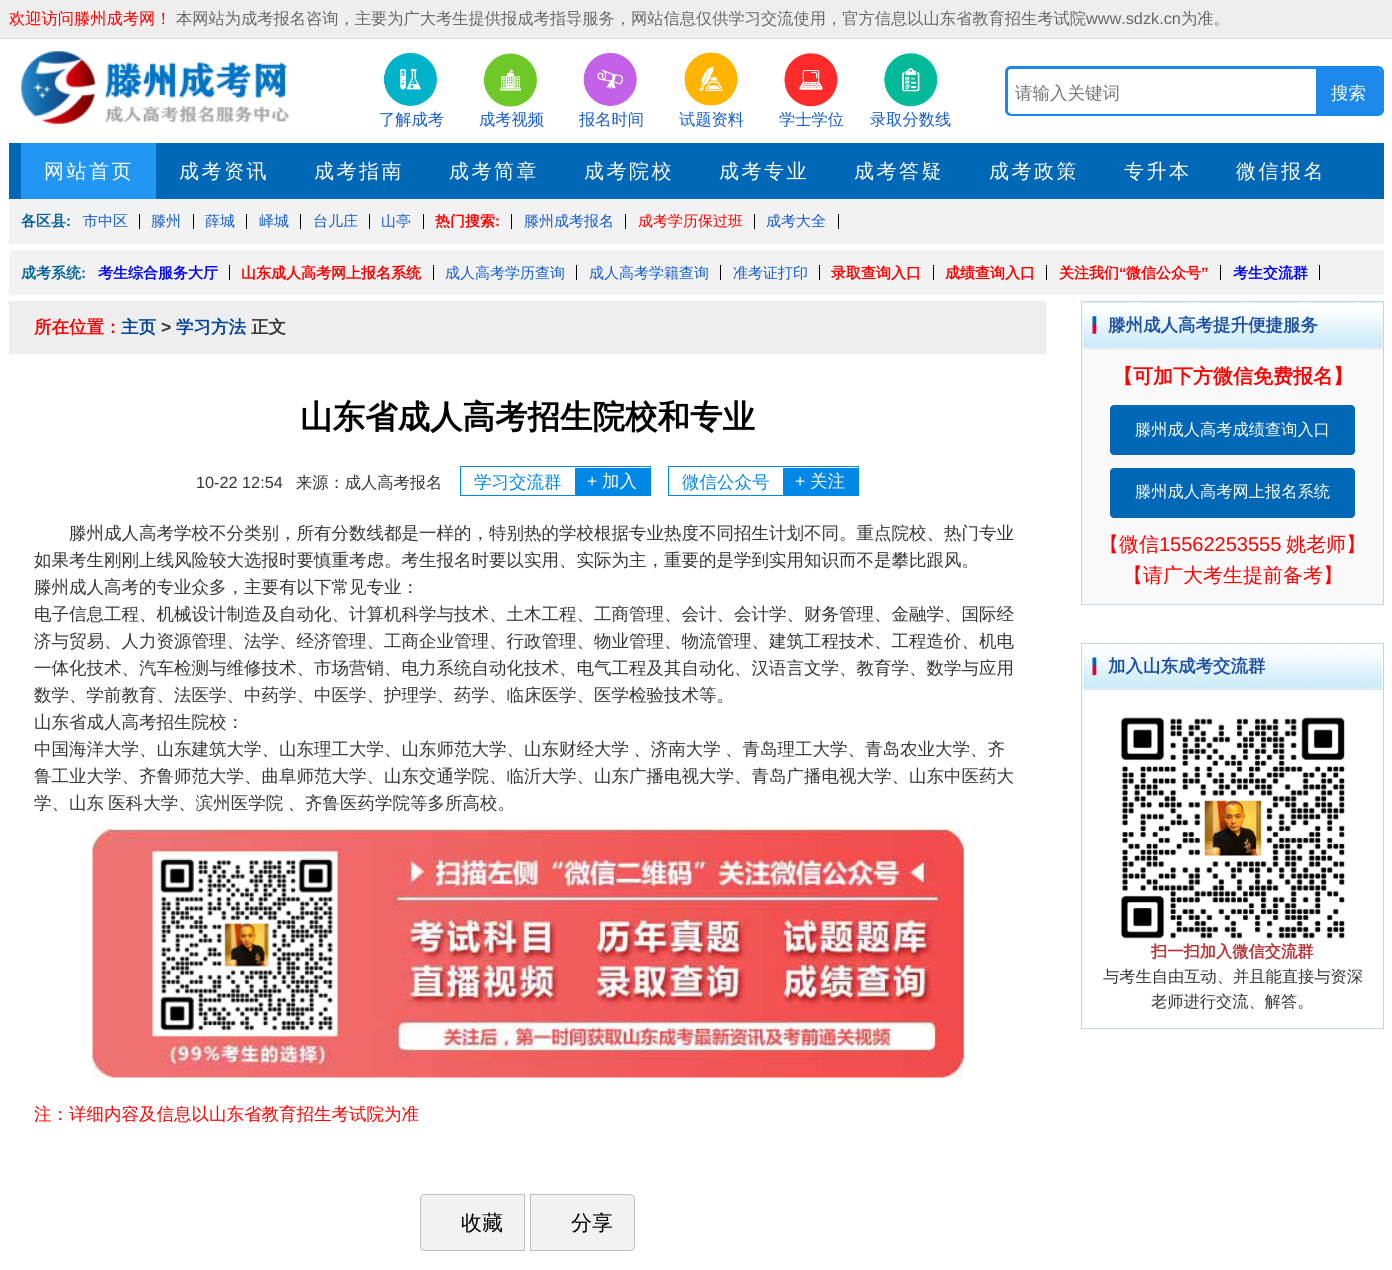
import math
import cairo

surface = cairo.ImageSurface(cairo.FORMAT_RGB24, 1392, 1270)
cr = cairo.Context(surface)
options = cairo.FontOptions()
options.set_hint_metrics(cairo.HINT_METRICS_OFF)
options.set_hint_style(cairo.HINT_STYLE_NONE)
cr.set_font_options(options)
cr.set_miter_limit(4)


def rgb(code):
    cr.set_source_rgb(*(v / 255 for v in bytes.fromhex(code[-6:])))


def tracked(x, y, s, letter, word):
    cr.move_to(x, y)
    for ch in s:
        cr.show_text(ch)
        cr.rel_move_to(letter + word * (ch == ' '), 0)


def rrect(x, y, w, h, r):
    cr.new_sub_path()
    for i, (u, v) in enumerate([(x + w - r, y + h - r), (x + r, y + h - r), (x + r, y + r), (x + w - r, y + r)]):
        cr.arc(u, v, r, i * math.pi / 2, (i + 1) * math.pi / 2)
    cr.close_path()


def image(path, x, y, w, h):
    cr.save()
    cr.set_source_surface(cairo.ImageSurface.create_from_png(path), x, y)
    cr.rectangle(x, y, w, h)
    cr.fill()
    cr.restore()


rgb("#ffffff")
cr.paint()
rgb("#eeeeee")
cr.rectangle(0, 0, 1392, 38)
cr.fill()
rgb("#dbdbdb")
cr.rectangle(0, 38, 1392, 1)
cr.fill()
image("img/1.png", 21, 51, 268, 73)
rrect(1006.5, 67.5, 376, 47, 4.5)
rgb("#1a89ed")
cr.set_line_width(3)
cr.stroke()
rgb("#ffffff")
cr.new_path()
cr.move_to(1012, 69)
cr.line_to(1317, 69)
cr.curve_to(1317.5, 69, 1318, 69.5, 1318, 70)
cr.line_to(1318, 114)
cr.line_to(1012, 114)
cr.curve_to(1010, 114, 1008, 112, 1008, 110)
cr.line_to(1008, 73)
cr.curve_to(1008, 71, 1010, 69, 1012, 69)
cr.close_path()
cr.fill()
cr.set_fill_rule(cairo.FILL_RULE_EVEN_ODD)
cr.new_path()
cr.move_to(1008, 73)
cr.line_to(1008, 110)
cr.curve_to(1008, 111, 1008, 112, 1009, 113)
cr.line_to(1009, 70)
cr.close_path()
cr.move_to(1012, 69)
cr.line_to(1009, 70)
cr.line_to(1317, 70)
cr.line_to(1317, 114)
cr.line_to(1318, 114)
cr.line_to(1318, 70)
cr.line_to(1317, 69)
cr.close_path()
cr.fill()
rgb("#1c89ea")
cr.new_path()
cr.move_to(1316, 69)
cr.line_to(1377, 69)
cr.curve_to(1379, 69, 1381, 71, 1381, 73)
cr.line_to(1381, 110)
cr.curve_to(1381, 112, 1379, 114, 1377, 114)
cr.line_to(1316, 114)
cr.close_path()
cr.fill()
cr.new_path()
cr.move_to(1381, 110)
cr.line_to(1381, 73)
cr.curve_to(1381, 72, 1381, 71, 1380, 70)
cr.line_to(1380, 113)
cr.close_path()
cr.move_to(1316, 69)
cr.line_to(1377, 69)
cr.curve_to(1378, 69, 1379, 69, 1380, 70)
cr.line_to(1317, 70)
cr.line_to(1317, 114)
cr.line_to(1316, 114)
cr.close_path()
cr.fill()
image("img/2.png", 383, 53, 54, 53)
image("img/3.png", 483, 53, 54, 54)
image("img/4.png", 583, 53, 54, 53)
image("img/5.png", 684, 52, 54, 54)
image("img/6.png", 784, 53, 54, 54)
image("img/7.png", 884, 53, 54, 54)
for x, y, w, h, color in [
    (9, 143, 1375, 56, "#0168b7"),
    (21, 143, 135, 56, "#2196f3"),
    (9, 199, 1375, 45, "#f2f2f2"),
    (139, 214, 1, 15, "#000000"),
    (193, 214, 1, 15, "#000000"),
    (246, 214, 1, 15, "#000000"),
    (300, 214, 1, 15, "#000000"),
    (369, 214, 1, 15, "#000000"),
    (423, 214, 1, 15, "#000000"),
    (511, 214, 1, 15, "#000000"),
    (625, 214, 1, 15, "#000000"),
    (754, 214, 1, 15, "#000000"),
    (838, 214, 1, 15, "#000000"),
    (9, 250, 1375, 45, "#f2f2f2"),
    (229, 265, 1, 15, "#000000"),
    (433, 265, 1, 15, "#000000"),
    (576, 265, 1, 15, "#000000"),
    (720, 265, 1, 15, "#000000"),
    (819, 265, 1, 15, "#000000"),
    (933, 265, 1, 15, "#000000"),
    (1046, 265, 1, 15, "#000000"),
    (1220, 265, 1, 15, "#000000"),
    (1319, 265, 1, 15, "#000000"),
    (9, 301, 1037, 53, "#eeeeee"),
]:
    rgb(color)
    cr.rectangle(x, y, w, h)
    cr.fill()
cr.rectangle(460.5, 466.5, 190, 29)
rgb("#0088e6")
cr.set_line_width(1)
cr.stroke()
cr.rectangle(575, 468, 75, 27)
cr.fill()
cr.rectangle(668.5, 466.5, 190, 29)
cr.stroke()
cr.rectangle(783, 468, 75, 27)
cr.fill()
image("img/8.png", 92, 828, 872, 250)
rgb("#f2f2f2")
cr.new_path()
cr.move_to(425, 1194.5)
cr.line_to(524.5, 1194.5)
cr.line_to(524.5, 1250.5)
cr.line_to(425, 1250.5)
cr.curve_to(422.5, 1250.5, 420.5, 1248.5, 420.5, 1246)
cr.line_to(420.5, 1199)
cr.curve_to(420.5, 1196.5, 422.5, 1194.5, 425, 1194.5)
cr.close_path()
cr.fill_preserve()
rgb("#bfbfbf")
cr.stroke()
rgb("#f2f2f2")
cr.new_path()
cr.move_to(530.5, 1194.5)
cr.line_to(630, 1194.5)
cr.curve_to(632.5, 1194.5, 634.5, 1196.5, 634.5, 1199)
cr.line_to(634.5, 1246)
cr.curve_to(634.5, 1248.5, 632.5, 1250.5, 630, 1250.5)
cr.line_to(530.5, 1250.5)
cr.close_path()
cr.fill_preserve()
rgb("#bfbfbf")
cr.stroke()
rgb("#f9f9f9")
cr.rectangle(1081.5, 301.5, 302, 303)
cr.fill_preserve()
rgb("#c3d4e7")
cr.stroke()
image("img/9.png", 1082, 302, 301, 47)
rgb("#dce7f3")
cr.rectangle(1083, 348, 300, 1)
cr.fill()
image("img/10.png", 1092, 316, 5, 18)
rgb("#0168b7")
rrect(1110, 405, 245, 50, 4)
cr.fill()
rrect(1110, 468, 245, 50, 4)
cr.fill()
cr.rectangle(1081.5, 643.5, 302, 385)
rgb("#c3d4e7")
cr.stroke()
image("img/11.png", 1082, 643, 301, 47)
rgb("#dce7f3")
cr.rectangle(1083, 689, 300, 1)
cr.fill()
image("img/12.png", 1092, 657, 5, 19)
image("img/13.png", 1120, 717, 225, 222)
cr.select_font_face("WenQuanYi Zen Hei Medium")
cr.set_font_size(16.25)
rgb("#ff0000")
cr.move_to(9, 24)
cr.show_text("欢迎访问滕州成考网！")
rgb("#676767")
cr.move_to(176, 24)
cr.show_text("本网站为成考报名咨询，主要为广大考生提供报成考指导服务，网站信息仅供学习交流使用，官方信息以山东省教育招生考试院")
cr.select_font_face("Liberation Sans")
cr.move_to(1086, 24)
cr.show_text("www.sdzk.cn")
cr.select_font_face("WenQuanYi Zen Hei Medium")
cr.move_to(1181, 24)
cr.show_text("为准。")
cr.set_font_size(17.5)
rgb("#757575")
cr.move_to(1015, 99)
cr.show_text("请输入关键词")
rgb("#ffffff")
cr.move_to(1331, 99)
cr.show_text("搜索")
cr.set_font_size(16.25)
rgb("#145ccd")
for x, y, s in [
    (379, 125, "了解成考"),
    (479, 125, "成考视频"),
    (579, 125, "报名时间"),
    (679, 125, "试题资料"),
    (779, 125, "学士学位"),
    (870, 125, "录取分数线"),
]:
    cr.move_to(x, y)
    cr.show_text(s)
cr.set_font_size(20)
rgb("#ffffff")
for x, y, s in [
    (44, 178, "网站首页"),
    (179, 178, "成考资讯"),
    (314, 178, "成考指南"),
    (449, 178, "成考简章"),
    (584, 178, "成考院校"),
    (719, 178, "成考专业"),
    (854, 178, "成考答疑"),
    (989, 178, "成考政策"),
    (1124, 178, "专升本"),
    (1236, 178, "微信报名"),
]:
    tracked(x, y, s, 2.5, 0)
cr.select_font_face("WenQuanYi Zen Hei", cairo.FONT_SLANT_NORMAL, cairo.FONT_WEIGHT_BOLD)
cr.set_font_size(15)
rgb("#036197")
cr.move_to(21, 226)
cr.show_text("各区县")
cr.select_font_face("Liberation Sans", cairo.FONT_SLANT_NORMAL, cairo.FONT_WEIGHT_BOLD)
cr.move_to(66, 226)
cr.show_text(":")
cr.save()
cr.set_fill_rule(cairo.FILL_RULE_WINDING)
cr.rectangle(71, 214, 768, 15)
cr.clip()
cr.select_font_face("WenQuanYi Zen Hei Medium")
rgb("#145ccd")
for x, y, s in [
    (83, 226, "市中区"),
    (151, 226, "滕州"),
    (205, 226, "薛城"),
    (259, 226, "峄城"),
    (313, 226, "台儿庄"),
    (381, 226, "山亭"),
]:
    cr.move_to(x, y)
    cr.show_text(s)
cr.select_font_face("WenQuanYi Zen Hei", cairo.FONT_SLANT_NORMAL, cairo.FONT_WEIGHT_BOLD)
rgb("#ff0000")
cr.move_to(435, 226)
cr.show_text("热门搜索")
cr.restore()
rgb("#ff0000")
cr.move_to(495, 226)
cr.show_text(":")
cr.save()
cr.set_fill_rule(cairo.FILL_RULE_WINDING)
cr.rectangle(71, 214, 768, 15)
cr.clip()
cr.select_font_face("WenQuanYi Zen Hei Medium")
rgb("#145ccd")
cr.move_to(524, 226)
cr.show_text("滕州成考报名")
rgb("#ff0000")
cr.move_to(638, 226)
cr.show_text("成考学历保过班")
rgb("#145ccd")
cr.move_to(766, 226)
cr.show_text("成考大全")
cr.restore()
cr.select_font_face("WenQuanYi Zen Hei", cairo.FONT_SLANT_NORMAL, cairo.FONT_WEIGHT_BOLD)
rgb("#036197")
cr.move_to(21, 278)
cr.show_text("成考系统")
cr.select_font_face("Liberation Sans", cairo.FONT_SLANT_NORMAL, cairo.FONT_WEIGHT_BOLD)
cr.move_to(81, 278)
cr.show_text(":")
cr.save()
cr.set_fill_rule(cairo.FILL_RULE_WINDING)
cr.rectangle(86, 265, 1234, 15)
cr.clip()
cr.select_font_face("WenQuanYi Zen Hei", cairo.FONT_SLANT_NORMAL, cairo.FONT_WEIGHT_BOLD)
rgb("#0000ff")
cr.move_to(98, 278)
cr.show_text("考生综合服务大厅")
cr.restore()
cr.select_font_face("WenQuanYi Zen Hei", cairo.FONT_SLANT_NORMAL, cairo.FONT_WEIGHT_BOLD)
rgb("#ff0000")
cr.move_to(241, 278)
cr.show_text("山东成人高考网上报名系统")
cr.select_font_face("WenQuanYi Zen Hei Medium")
rgb("#145ccd")
for x, y, s in [
    (445, 278, "成人高考学历查询"),
    (589, 278, "成人高考学籍查询"),
    (733, 278, "准考证打印"),
]:
    cr.move_to(x, y)
    cr.show_text(s)
cr.select_font_face("WenQuanYi Zen Hei", cairo.FONT_SLANT_NORMAL, cairo.FONT_WEIGHT_BOLD)
rgb("#ff0000")
for x, y, s in [
    (831, 278, "录取查询入口"),
    (945, 278, "成绩查询入口"),
    (1059, 278, "关注我们"),
]:
    cr.move_to(x, y)
    cr.show_text(s)
cr.select_font_face("Liberation Sans", cairo.FONT_SLANT_NORMAL, cairo.FONT_WEIGHT_BOLD)
cr.move_to(1119, 278)
cr.show_text("“")
cr.select_font_face("WenQuanYi Zen Hei", cairo.FONT_SLANT_NORMAL, cairo.FONT_WEIGHT_BOLD)
cr.move_to(1126, 278)
cr.show_text("微信公众号")
cr.select_font_face("Liberation Sans", cairo.FONT_SLANT_NORMAL, cairo.FONT_WEIGHT_BOLD)
cr.move_to(1201, 278)
cr.show_text("”")
cr.save()
cr.set_fill_rule(cairo.FILL_RULE_WINDING)
cr.rectangle(86, 265, 1234, 15)
cr.clip()
cr.select_font_face("WenQuanYi Zen Hei", cairo.FONT_SLANT_NORMAL, cairo.FONT_WEIGHT_BOLD)
rgb("#0000ff")
cr.move_to(1233, 278)
cr.show_text("考生交流群")
cr.restore()
cr.select_font_face("WenQuanYi Zen Hei", cairo.FONT_SLANT_NORMAL, cairo.FONT_WEIGHT_BOLD)
cr.set_font_size(17.5)
cr.move_to(34, 333)
cr.show_text("所在位置：")
rgb("#004499")
cr.move_to(121, 333)
cr.show_text("主页")
cr.select_font_face("Liberation Sans", cairo.FONT_SLANT_NORMAL, cairo.FONT_WEIGHT_BOLD)
rgb("#353535")
cr.move_to(161, 333)
cr.show_text(">")
cr.select_font_face("WenQuanYi Zen Hei", cairo.FONT_SLANT_NORMAL, cairo.FONT_WEIGHT_BOLD)
rgb("#004499")
cr.move_to(176, 333)
cr.show_text("学习方法")
rgb("#353535")
cr.move_to(251, 333)
cr.show_text("正文")
cr.set_font_size(32.5)
rgb("#000000")
cr.move_to(300, 428)
cr.show_text("山东省成人高考招生院校和专业")
cr.select_font_face("Liberation Sans")
cr.set_font_size(16.25)
rgb("#353535")
cr.move_to(196, 488)
cr.show_text("10-22 12:54")
cr.select_font_face("WenQuanYi Zen Hei Medium")
cr.move_to(296, 488)
cr.show_text("来源：成人高考报名")
cr.set_font_size(17.5)
rgb("#0088e6")
cr.move_to(474, 488)
cr.show_text("学习交流群")
cr.select_font_face("Liberation Sans")
rgb("#ffffff")
cr.move_to(587, 487)
cr.show_text("+")
cr.select_font_face("WenQuanYi Zen Hei Medium")
cr.move_to(602, 487)
cr.show_text("加入")
rgb("#0088e6")
cr.move_to(682, 488)
cr.show_text("微信公众号")
cr.select_font_face("Liberation Sans")
rgb("#ffffff")
cr.move_to(795, 487)
cr.show_text("+")
cr.select_font_face("WenQuanYi Zen Hei Medium")
cr.move_to(810, 487)
cr.show_text("关注")
rgb("#353535")
for x, y, s in [
    (69, 539, "滕州成人高考学校不分类别，所有分数线都是一样的，特别热的学校根据专业热度不同招生计划不同。重点院校、热门专业"),
    (34, 566, "如果考生刚刚上线风险较大选报时要慎重考虑。考生报名时要以实用、实际为主，重要的是学到实用知识而不是攀比跟风。"),
    (34, 593, "滕州成人高考的专业众多，主要有以下常见专业："),
    (34, 620, "电子信息工程、机械设计制造及自动化、计算机科学与技术、土木工程、工商管理、会计、会计学、财务管理、金融学、国际经"),
    (34, 647, "济与贸易、人力资源管理、法学、经济管理、工商企业管理、行政管理、物业管理、物流管理、建筑工程技术、工程造价、机电"),
    (34, 674, "一体化技术、汽车检测与维修技术、市场营销、电力系统自动化技术、电气工程及其自动化、汉语言文学、教育学、数学与应用"),
    (34, 701, "数学、学前教育、法医学、中药学、中医学、护理学、药学、临床医学、医学检验技术等。"),
    (34, 728, "山东省成人高考招生院校："),
]:
    cr.move_to(x, y)
    cr.show_text(s)
tracked(34, 755, "中国海洋大学、山东建筑大学、山东理工大学、山东师范大学、山东财经大学 、济南大学 、青岛理工大学、青岛农业大学、齐", 0, -1)
cr.move_to(34, 782)
cr.show_text("鲁工业大学、齐鲁师范大学、曲阜师范大学、山东交通学院、临沂大学、山东广播电视大学、青岛广播电视大学、山东中医药大")
tracked(34, 809, "学、山东 医科大学、滨州医学院 、齐鲁医药学院等多所高校。", 0, -1)
rgb("#ff0000")
cr.move_to(34, 1120)
cr.show_text("注：详细内容及信息以山东省教育招生考试院为准")
cr.set_font_size(21)
rgb("#000000")
cr.move_to(461, 1230)
cr.show_text("收藏")
cr.move_to(571, 1230)
cr.show_text("分享")
cr.select_font_face("WenQuanYi Zen Hei", cairo.FONT_SLANT_NORMAL, cairo.FONT_WEIGHT_BOLD)
cr.set_font_size(17.5)
rgb("#1e50a2")
cr.move_to(1108, 331)
cr.show_text("滕州成人高考提升便捷服务")
cr.set_font_size(20)
rgb("#ff0000")
cr.move_to(1113, 383)
cr.show_text("【可加下方微信免费报名】")
cr.select_font_face("WenQuanYi Zen Hei Medium")
cr.set_font_size(16.25)
rgb("#ffffff")
cr.move_to(1135, 435)
cr.show_text("滕州成人高考成绩查询入口")
cr.move_to(1135, 497)
cr.show_text("滕州成人高考网上报名系统")
cr.set_font_size(20)
rgb("#ff0000")
cr.move_to(1099, 551)
cr.show_text("【微信")
cr.select_font_face("Liberation Sans")
cr.move_to(1159, 551)
cr.show_text("15562253555")
cr.select_font_face("WenQuanYi Zen Hei Medium")
cr.move_to(1286, 551)
cr.show_text("姚老师】")
cr.move_to(1123, 582)
cr.show_text("【请广大考生提前备考】")
cr.select_font_face("WenQuanYi Zen Hei", cairo.FONT_SLANT_NORMAL, cairo.FONT_WEIGHT_BOLD)
cr.set_font_size(17.5)
rgb("#1e50a2")
cr.move_to(1108, 672)
cr.show_text("加入山东成考交流群")
cr.set_font_size(16.25)
rgb("#b83435")
cr.move_to(1151, 957)
cr.show_text("扫一扫加入微信交流群")
cr.select_font_face("WenQuanYi Zen Hei Medium")
rgb("#353535")
cr.move_to(1103, 982)
cr.show_text("与考生自由互动、并且能直接与资深")
cr.move_to(1151, 1007)
cr.show_text("老师进行交流、解答。")
surface.write_to_png("page.png")
